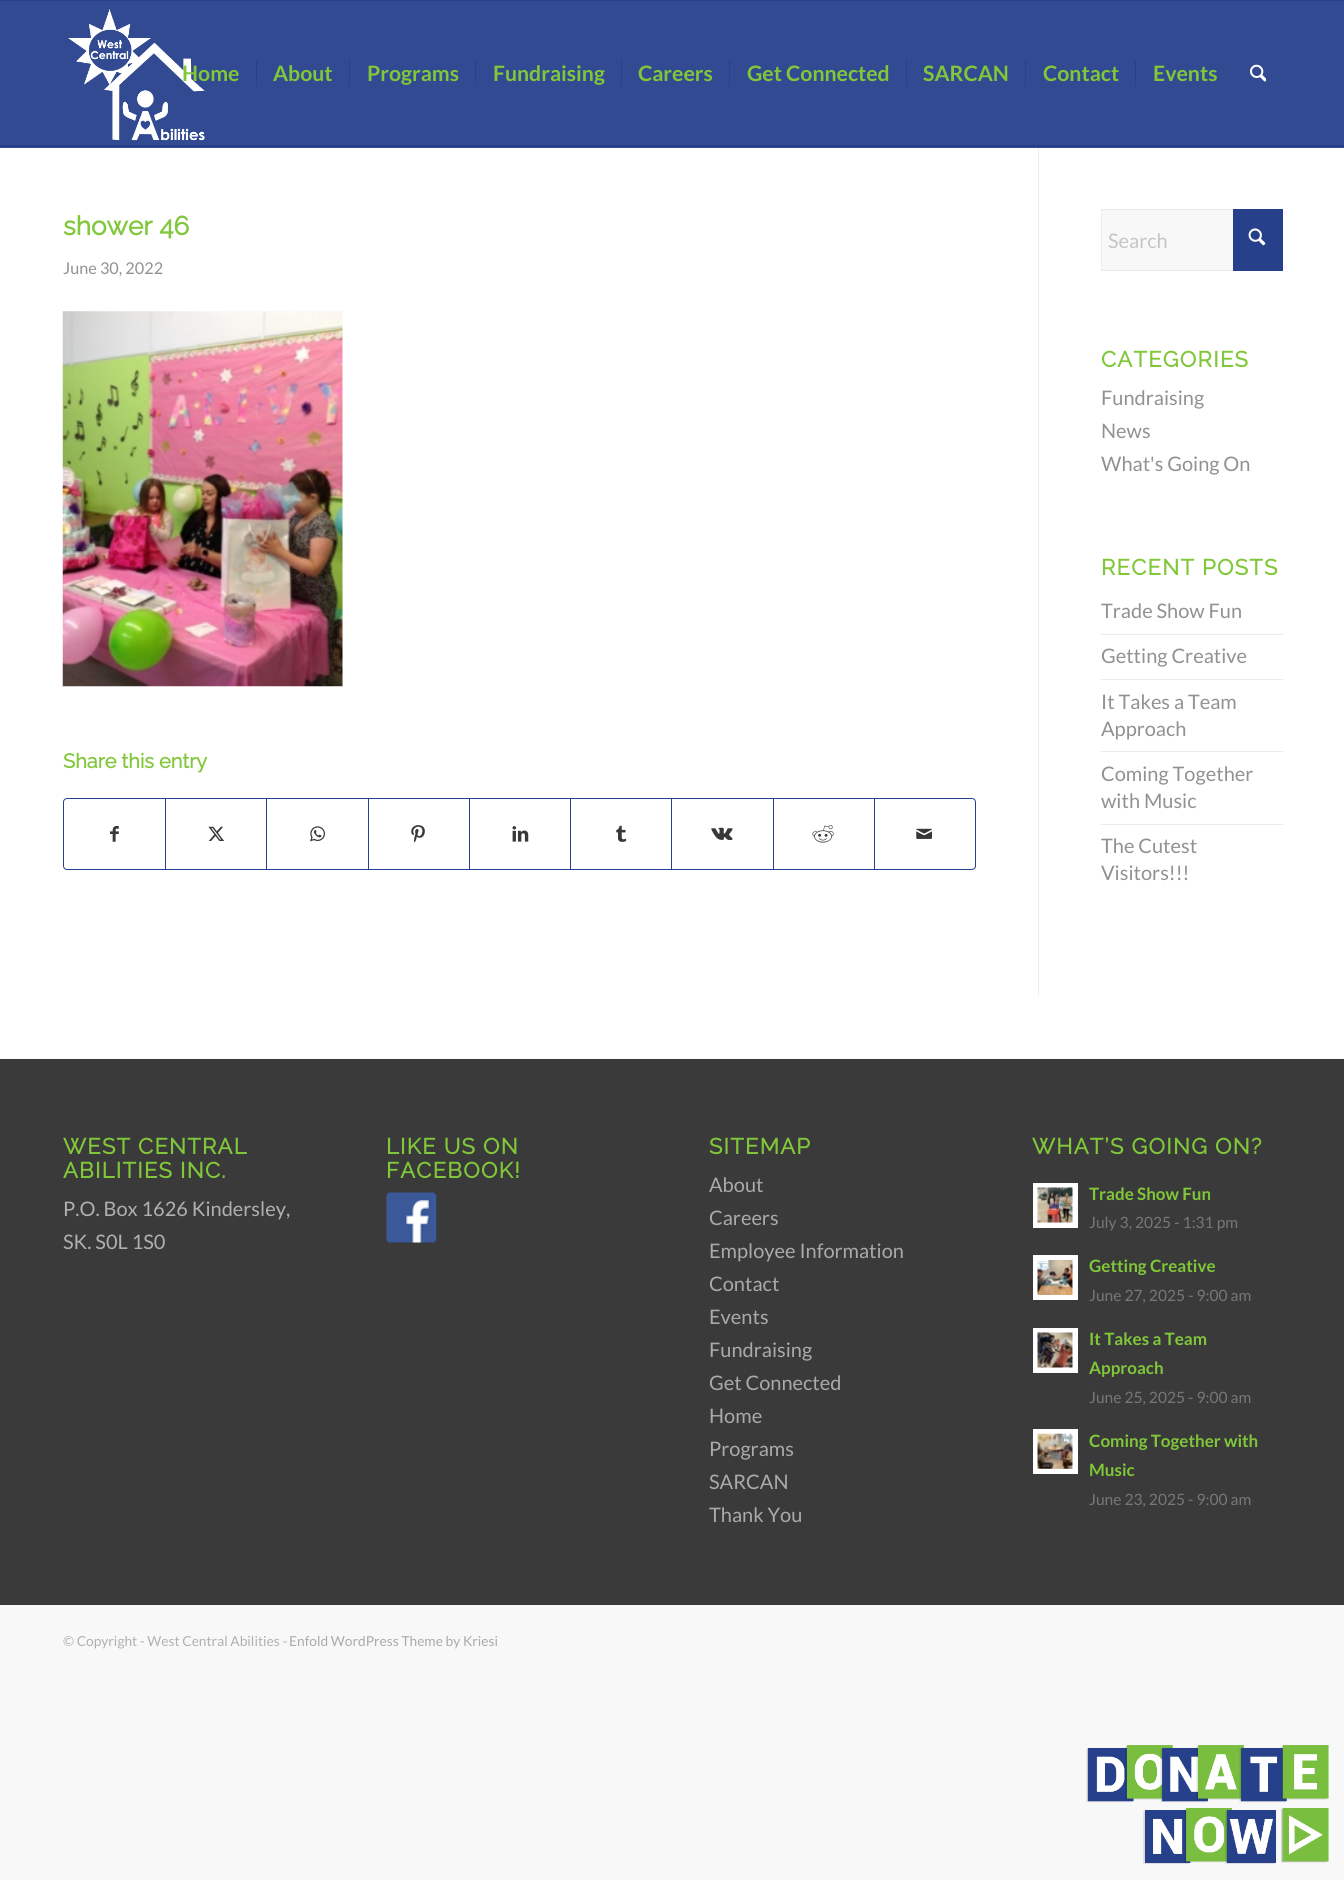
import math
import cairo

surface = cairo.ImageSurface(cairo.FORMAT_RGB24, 1344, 1880)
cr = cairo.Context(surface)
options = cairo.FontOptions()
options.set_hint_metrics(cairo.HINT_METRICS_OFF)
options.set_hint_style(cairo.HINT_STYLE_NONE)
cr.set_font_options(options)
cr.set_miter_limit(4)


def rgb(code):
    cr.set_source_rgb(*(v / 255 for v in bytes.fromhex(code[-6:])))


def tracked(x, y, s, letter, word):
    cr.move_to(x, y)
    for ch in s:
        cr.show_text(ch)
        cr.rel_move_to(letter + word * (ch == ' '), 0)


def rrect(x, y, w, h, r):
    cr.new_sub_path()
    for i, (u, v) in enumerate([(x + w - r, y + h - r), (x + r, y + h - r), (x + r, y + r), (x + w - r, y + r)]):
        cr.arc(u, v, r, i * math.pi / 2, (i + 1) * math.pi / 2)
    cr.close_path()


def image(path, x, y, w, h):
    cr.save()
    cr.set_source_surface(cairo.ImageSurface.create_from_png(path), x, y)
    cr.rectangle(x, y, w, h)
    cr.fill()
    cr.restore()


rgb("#f8f8f8")
cr.paint()
for x, y, w, h, color in [
    (0, 148, 1344, 910, "#ffffff"),
    (0, 1, 1344, 147, "#324a91"),
    (0, 0, 1344, 1, "#27408b"),
    (1038, 146, 1, 850, "#ebebeb"),
    (1038, 146, 1, 2, "#314990"),
    (0, 146, 1344, 1, "#27408b"),
]:
    rgb(color)
    cr.rectangle(x, y, w, h)
    cr.fill()
image("img/1.png", 68, 9, 137, 132)
for x, y, w, h, color in [
    (256, 60, 1, 26, "#27408b"),
    (349, 60, 1, 26, "#27408b"),
    (475, 60, 1, 26, "#27408b"),
    (621, 60, 1, 26, "#27408b"),
    (729, 60, 1, 26, "#27408b"),
    (906, 60, 1, 26, "#27408b"),
    (1025, 60, 1, 26, "#27408b"),
    (1135, 60, 1, 26, "#27408b"),
]:
    rgb(color)
    cr.rectangle(x, y, w, h)
    cr.fill()
image("img/2.png", 1250, 64, 16, 18)
cr.rectangle(0, 145, 1344, 1)
cr.fill()
image("img/3.png", 62, 311, 281, 376)
rrect(63.5, 798.5, 912, 71, 3.5)
cr.set_line_width(1)
cr.stroke()
image("img/4.png", 110, 826, 9, 16)
cr.rectangle(165, 799, 1, 70)
cr.fill()
image("img/5.png", 208, 826, 16, 15)
cr.rectangle(266, 799, 1, 70)
cr.fill()
image("img/6.png", 310, 826, 15, 16)
cr.rectangle(368, 799, 1, 70)
cr.fill()
image("img/7.png", 411, 825, 14, 18)
cr.rectangle(469, 799, 1, 70)
cr.fill()
image("img/8.png", 512, 826, 17, 16)
cr.rectangle(570, 799, 1, 70)
cr.fill()
image("img/9.png", 616, 825, 11, 17)
cr.rectangle(671, 799, 1, 70)
cr.fill()
image("img/10.png", 711, 827, 22, 13)
cr.rectangle(773, 799, 1, 70)
cr.fill()
image("img/11.png", 812, 825, 22, 18)
cr.rectangle(874, 799, 1, 70)
cr.fill()
image("img/12.png", 916, 828, 16, 11)
rgb("#f8f8f8")
cr.rectangle(1102, 210, 131, 60)
cr.fill()
cr.rectangle(1101.5, 209.5, 181, 61)
rgb("#ebebeb")
cr.stroke()
rgb("#27408b")
cr.rectangle(1233, 209, 50, 62)
cr.fill()
image("img/13.png", 1248, 228, 18, 18)
for x, y, w, h, color in [
    (1101, 634, 182, 1, "#ebebeb"),
    (1101, 679, 182, 1, "#ebebeb"),
    (1101, 751, 182, 1, "#ebebeb"),
    (1101, 824, 182, 1, "#ebebeb"),
    (0, 1059, 1344, 546, "#3a3a3a"),
    (0, 1058, 1344, 1, "#fcfcfc"),
]:
    rgb(color)
    cr.rectangle(x, y, w, h)
    cr.fill()
image("img/14.png", 386, 1192, 51, 51)
rgb("#ffffff")
cr.rectangle(1033.5, 1183.5, 44, 44)
cr.fill_preserve()
rgb("#fcfcfc")
cr.stroke()
image("img/15.png", 1037, 1187, 36, 36)
rgb("#ffffff")
cr.rectangle(1033.5, 1255.5, 44, 44)
cr.fill_preserve()
rgb("#fcfcfc")
cr.stroke()
image("img/16.png", 1037, 1260, 36, 35)
rgb("#ffffff")
cr.rectangle(1033.5, 1328.5, 44, 44)
cr.fill_preserve()
rgb("#fcfcfc")
cr.stroke()
image("img/17.png", 1037, 1332, 36, 36)
rgb("#ffffff")
cr.rectangle(1033.5, 1429.5, 44, 44)
cr.fill_preserve()
rgb("#fcfcfc")
cr.stroke()
image("img/18.png", 1037, 1433, 36, 36)
image("img/19.png", 1086, 1745, 243, 119)
cr.select_font_face("Lato", cairo.FONT_SLANT_NORMAL, cairo.FONT_WEIGHT_BOLD)
cr.set_font_size(21.25)
rgb("#80c739")
for x, y, s in [
    (182, 81, "Home"),
    (273, 81, "About"),
    (367, 81, "Programs"),
    (493, 81, "Fundraising"),
    (638, 81, "Careers"),
    (747, 81, "Get Connected"),
    (923, 81, "SARCAN"),
    (1043, 81, "Contact"),
    (1153, 81, "Events"),
]:
    cr.move_to(x, y)
    cr.show_text(s)
cr.select_font_face("Raleway", cairo.FONT_SLANT_NORMAL, cairo.FONT_WEIGHT_BOLD)
cr.set_font_size(26.25)
cr.move_to(63, 235)
cr.show_text("shower 46")
cr.select_font_face("Lato")
cr.set_font_size(16.25)
rgb("#919191")
cr.move_to(63, 274)
cr.show_text("June 30, 2022")
cr.select_font_face("Raleway", cairo.FONT_SLANT_NORMAL, cairo.FONT_WEIGHT_BOLD)
cr.set_font_size(20)
rgb("#80c739")
cr.move_to(63, 768)
cr.show_text("Share this entry")
cr.select_font_face("Lato")
rgb("#c5c5c5")
cr.move_to(1108, 248)
cr.show_text("Search")
cr.select_font_face("Raleway", cairo.FONT_SLANT_NORMAL, cairo.FONT_WEIGHT_BOLD)
cr.set_font_size(22)
rgb("#80c739")
tracked(1101, 367, "CATEGORIES", 1.25, 0)
cr.select_font_face("Lato")
cr.set_font_size(20)
rgb("#919191")
for x, y, s in [
    (1101, 405, "Fundraising"),
    (1101, 438, "News"),
    (1101, 471, "What's Going On"),
]:
    cr.move_to(x, y)
    cr.show_text(s)
cr.select_font_face("Raleway", cairo.FONT_SLANT_NORMAL, cairo.FONT_WEIGHT_BOLD)
cr.set_font_size(22)
rgb("#80c739")
tracked(1101, 575, "RECENT POSTS", 1.25, 0)
cr.select_font_face("Lato")
cr.set_font_size(20)
rgb("#919191")
for x, y, s in [
    (1101, 618, "Trade Show Fun"),
    (1101, 663, "Getting Creative"),
    (1101, 709, "It Takes a Team"),
    (1101, 736, "Approach"),
    (1101, 781, "Coming Together"),
    (1101, 808, "with Music"),
    (1101, 853, "The Cutest"),
    (1101, 880, "Visitors!!!"),
]:
    cr.move_to(x, y)
    cr.show_text(s)
cr.select_font_face("Raleway", cairo.FONT_SLANT_NORMAL, cairo.FONT_WEIGHT_BOLD)
cr.set_font_size(22)
rgb("#80c739")
tracked(63, 1154, "WEST CENTRAL", 1.25, 0)
tracked(63, 1178, "ABILITIES INC.", 1.25, 0)
cr.select_font_face("Lato")
cr.set_font_size(20)
rgb("#b0b0b0")
cr.move_to(63, 1216)
cr.show_text("P.O. Box 1626 Kindersley,")
cr.move_to(63, 1249)
cr.show_text("SK. S0L 1S0")
cr.select_font_face("Raleway", cairo.FONT_SLANT_NORMAL, cairo.FONT_WEIGHT_BOLD)
cr.set_font_size(22)
rgb("#80c739")
for x, y, s in [
    (386, 1154, "LIKE US ON"),
    (386, 1178, "FACEBOOK!"),
    (709, 1154, "SITEMAP"),
]:
    tracked(x, y, s, 1.25, 0)
cr.select_font_face("Lato")
cr.set_font_size(20)
rgb("#aaaaaa")
for x, y, s in [
    (709, 1192, "About"),
    (709, 1225, "Careers"),
    (709, 1258, "Employee Information"),
    (709, 1291, "Contact"),
    (709, 1324, "Events"),
    (709, 1357, "Fundraising"),
    (709, 1390, "Get Connected"),
    (709, 1423, "Home"),
    (709, 1456, "Programs"),
    (709, 1489, "SARCAN"),
    (709, 1522, "Thank You"),
]:
    cr.move_to(x, y)
    cr.show_text(s)
cr.select_font_face("Raleway", cairo.FONT_SLANT_NORMAL, cairo.FONT_WEIGHT_BOLD)
cr.set_font_size(22)
rgb("#80c739")
tracked(1032, 1154, "WHAT’S GOING ON?", 1.25, 0)
cr.select_font_face("Lato", cairo.FONT_SLANT_NORMAL, cairo.FONT_WEIGHT_BOLD)
cr.set_font_size(17)
cr.move_to(1089, 1200)
cr.show_text("Trade Show Fun")
cr.select_font_face("Lato")
cr.set_font_size(15.6)
rgb("#777777")
cr.move_to(1089, 1228)
cr.show_text("July 3, 2025 - 1:31 pm")
cr.select_font_face("Lato", cairo.FONT_SLANT_NORMAL, cairo.FONT_WEIGHT_BOLD)
cr.set_font_size(17)
rgb("#80c739")
cr.move_to(1089, 1272)
cr.show_text("Getting Creative")
cr.select_font_face("Lato")
cr.set_font_size(15.6)
rgb("#777777")
cr.move_to(1089, 1301)
cr.show_text("June 27, 2025 - 9:00 am")
cr.select_font_face("Lato", cairo.FONT_SLANT_NORMAL, cairo.FONT_WEIGHT_BOLD)
cr.set_font_size(17)
rgb("#80c739")
cr.move_to(1089, 1345)
cr.show_text("It Takes a Team")
cr.move_to(1089, 1374)
cr.show_text("Approach")
cr.select_font_face("Lato")
cr.set_font_size(15.6)
rgb("#777777")
cr.move_to(1089, 1403)
cr.show_text("June 25, 2025 - 9:00 am")
cr.select_font_face("Lato", cairo.FONT_SLANT_NORMAL, cairo.FONT_WEIGHT_BOLD)
cr.set_font_size(17)
rgb("#80c739")
cr.move_to(1089, 1447)
cr.show_text("Coming Together with")
cr.move_to(1089, 1476)
cr.show_text("Music")
cr.select_font_face("Lato")
cr.set_font_size(15.6)
rgb("#777777")
cr.move_to(1089, 1505)
cr.show_text("June 23, 2025 - 9:00 am")
cr.set_font_size(13.75)
rgb("#b0b0b0")
cr.move_to(63, 1646)
cr.show_text("© Copyright - West Central Abilities -")
rgb("#aaaaaa")
cr.move_to(289, 1646)
cr.show_text("Enfold WordPress Theme by Kriesi")
surface.write_to_png("page.png")
